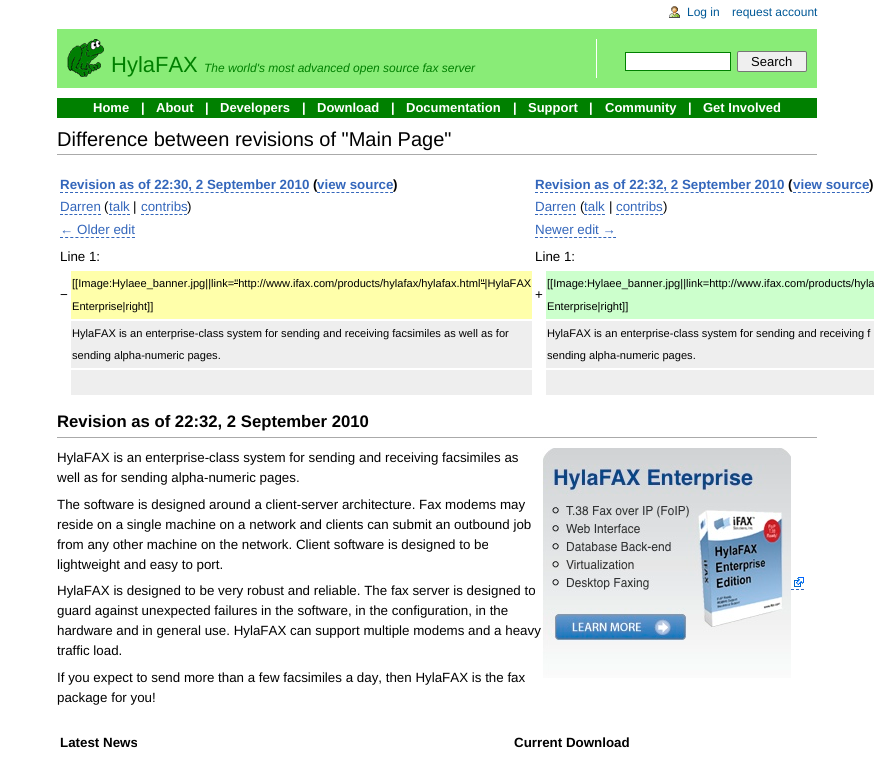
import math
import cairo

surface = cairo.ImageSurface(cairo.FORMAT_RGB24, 874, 762)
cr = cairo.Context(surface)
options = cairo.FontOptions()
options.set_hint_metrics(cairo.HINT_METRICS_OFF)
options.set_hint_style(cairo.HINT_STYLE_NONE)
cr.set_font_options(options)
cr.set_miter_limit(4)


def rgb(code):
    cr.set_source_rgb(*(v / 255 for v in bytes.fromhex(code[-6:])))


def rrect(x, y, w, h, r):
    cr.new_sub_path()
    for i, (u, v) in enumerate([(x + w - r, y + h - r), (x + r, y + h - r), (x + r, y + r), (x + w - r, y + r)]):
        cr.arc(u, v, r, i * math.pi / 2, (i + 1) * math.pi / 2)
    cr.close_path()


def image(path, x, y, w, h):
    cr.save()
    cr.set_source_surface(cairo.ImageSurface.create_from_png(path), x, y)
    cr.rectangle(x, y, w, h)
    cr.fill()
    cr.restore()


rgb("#ffffff")
cr.paint()
image("img/1.png", 669, 6, 11, 12)
rgb("#89ec77")
cr.rectangle(57, 29, 760, 59)
cr.fill()
image("img/2.png", 67, 39, 37, 38)
rgb("#ffffff")
cr.rectangle(596, 39, 1, 39)
cr.fill()
cr.rectangle(625.5, 52.5, 105, 18)
cr.fill_preserve()
rgb("#008000")
cr.set_line_width(1)
cr.stroke()
rgb("#efefef")
rrect(737.5, 51.5, 69, 20, 1.5)
cr.fill_preserve()
rgb("#767676")
cr.stroke()
rgb("#008000")
cr.rectangle(57, 98, 760, 20)
cr.fill()
rgb("#aaaaaa")
cr.rectangle(57, 154, 760, 1)
cr.fill()
cr.new_path()
cr.move_to(60, 192.5)
cr.line_to(309, 192.5)
rgb("#3366bb")
cr.set_dash([3, 2.02])
cr.stroke()
cr.new_path()
cr.move_to(317, 192.5)
cr.line_to(393, 192.5)
cr.set_dash([3, 1.87])
cr.stroke()
cr.new_path()
cr.move_to(60, 214.5)
cr.line_to(101, 214.5)
cr.set_dash([3, 1.75])
cr.stroke()
cr.new_path()
cr.move_to(109, 214.5)
cr.line_to(130, 214.5)
cr.set_dash([3, 1.5])
cr.stroke()
cr.new_path()
cr.move_to(141, 214.5)
cr.line_to(187, 214.5)
cr.set_dash([3, 1.78])
cr.stroke()
cr.new_path()
cr.move_to(60, 237.5)
cr.line_to(135, 237.5)
cr.set_dash([3, 2.14])
cr.stroke()
cr.new_path()
cr.move_to(535, 192.5)
cr.line_to(784, 192.5)
cr.set_dash([3, 2.02])
cr.stroke()
cr.new_path()
cr.move_to(793, 192.5)
cr.line_to(869, 192.5)
cr.set_dash([3, 1.87])
cr.stroke()
cr.new_path()
cr.move_to(535, 214.5)
cr.line_to(576, 214.5)
cr.set_dash([3, 1.75])
cr.stroke()
cr.new_path()
cr.move_to(584, 214.5)
cr.line_to(605, 214.5)
cr.set_dash([3, 1.5])
cr.stroke()
cr.new_path()
cr.move_to(616, 214.5)
cr.line_to(663, 214.5)
cr.set_dash([3, 1.89])
cr.stroke()
cr.new_path()
cr.move_to(535, 237.5)
cr.line_to(616, 237.5)
cr.set_dash([3, 1.88])
cr.stroke()
for x, y, w, h, color in [
    (71, 271, 461, 48, "#ffffaa"),
    (234, 283, 4, 1, "#000000"),
    (481, 283, 4, 1, "#000000"),
    (546, 271, 328, 48, "#ccffcc"),
    (71, 321, 461, 47, "#eeeeee"),
    (546, 321, 328, 47, "#eeeeee"),
    (71, 370, 461, 25, "#eeeeee"),
    (546, 370, 328, 25, "#eeeeee"),
    (57, 437, 760, 1, "#aaaaaa"),
]:
    rgb(color)
    cr.rectangle(x, y, w, h)
    cr.fill()
cr.new_path()
cr.move_to(542, 589.5)
cr.line_to(804, 589.5)
rgb("#3366bb")
cr.set_dash([3, 1.98])
cr.stroke()
image("img/3.png", 542, 448, 249, 230)
image("img/4.png", 794, 577, 10, 10)
cr.select_font_face("Liberation Sans")
cr.set_font_size(12)
rgb("#005896")
cr.move_to(687, 16)
cr.show_text("Log in")
cr.move_to(732, 16)
cr.show_text("request account")
cr.set_font_size(22)
rgb("#008000")
cr.move_to(111, 72)
cr.show_text("HylaFAX")
cr.select_font_face("Liberation Sans", cairo.FONT_SLANT_ITALIC)
cr.set_font_size(12)
cr.move_to(204, 72)
cr.show_text("The world's most advanced open source fax server")
cr.select_font_face("Liberation Sans")
cr.set_font_size(13)
rgb("#000000")
cr.move_to(751, 66)
cr.show_text("Search")
cr.select_font_face("Liberation Sans", cairo.FONT_SLANT_NORMAL, cairo.FONT_WEIGHT_BOLD)
rgb("#ffffff")
for x, y, s in [
    (93, 112, "Home"),
    (141, 112, "|"),
    (156, 112, "About"),
    (205, 112, "|"),
    (220, 112, "Developers"),
    (302, 112, "|"),
    (317, 112, "Download"),
    (391, 112, "|"),
    (406, 112, "Documentation"),
    (513, 112, "|"),
    (528, 112, "Support"),
    (589, 112, "|"),
    (605, 112, "Community"),
    (688, 112, "|"),
    (703, 112, "Get Involved"),
]:
    cr.move_to(x, y)
    cr.show_text(s)
cr.select_font_face("Liberation Sans")
cr.set_font_size(20)
rgb("#000000")
cr.move_to(57, 146)
cr.show_text("Difference between revisions of \"Main Page\"")
cr.select_font_face("Liberation Sans", cairo.FONT_SLANT_NORMAL, cairo.FONT_WEIGHT_BOLD)
cr.set_font_size(13.35)
rgb("#3366bb")
cr.move_to(60, 189)
cr.show_text("Revision as of 22:30, 2 September 2010")
rgb("#000000")
cr.move_to(313, 189)
cr.show_text("(")
rgb("#3366bb")
cr.move_to(317, 189)
cr.show_text("view source")
rgb("#000000")
cr.move_to(393, 189)
cr.show_text(")")
cr.select_font_face("Liberation Sans")
rgb("#3366bb")
cr.move_to(60, 211)
cr.show_text("Darren")
rgb("#000000")
cr.move_to(104, 211)
cr.show_text("(")
rgb("#3366bb")
cr.move_to(109, 211)
cr.show_text("talk")
rgb("#000000")
cr.move_to(133, 211)
cr.show_text("|")
rgb("#3366bb")
cr.move_to(141, 211)
cr.show_text("contribs")
rgb("#000000")
cr.move_to(187, 211)
cr.show_text(")")
rgb("#3366bb")
cr.move_to(60, 234)
cr.show_text("← Older edit")
cr.select_font_face("Liberation Sans", cairo.FONT_SLANT_NORMAL, cairo.FONT_WEIGHT_BOLD)
cr.move_to(535, 189)
cr.show_text("Revision as of 22:32, 2 September 2010")
rgb("#000000")
cr.move_to(788, 189)
cr.show_text("(")
rgb("#3366bb")
cr.move_to(793, 189)
cr.show_text("view source")
rgb("#000000")
cr.move_to(869, 189)
cr.show_text(")")
cr.select_font_face("Liberation Sans")
rgb("#3366bb")
cr.move_to(535, 211)
cr.show_text("Darren")
rgb("#000000")
cr.move_to(580, 211)
cr.show_text("(")
rgb("#3366bb")
cr.move_to(584, 211)
cr.show_text("talk")
rgb("#000000")
cr.move_to(609, 211)
cr.show_text("|")
rgb("#3366bb")
cr.move_to(616, 211)
cr.show_text("contribs")
rgb("#000000")
cr.move_to(663, 211)
cr.show_text(")")
rgb("#3366bb")
cr.move_to(535, 234)
cr.show_text("Newer edit →")
rgb("#000000")
for x, y, s in [
    (60, 261, "Line 1:"),
    (535, 261, "Line 1:"),
    (60, 299, "−"),
]:
    cr.move_to(x, y)
    cr.show_text(s)
cr.set_font_size(11.1)
cr.move_to(72, 287)
cr.show_text("[[Image:Hylaee_banner.jpg||link=\"http://www.ifax.com/products/hylafax/hylafax.html\"|HylaFAX")
cr.move_to(72, 310)
cr.show_text("Enterprise|right]]")
cr.set_font_size(13.35)
cr.move_to(535, 299)
cr.show_text("+")
cr.set_font_size(11.1)
for x, y, s in [
    (547, 287, "[[Image:Hylaee_banner.jpg||link=http://www.ifax.com/products/hyla"),
    (547, 310, "Enterprise|right]]"),
    (72, 337, "HylaFAX is an enterprise-class system for sending and receiving facsimiles as well as for"),
    (72, 359, "sending alpha-numeric pages."),
    (547, 337, "HylaFAX is an enterprise-class system for sending and receiving f"),
    (547, 359, "sending alpha-numeric pages."),
]:
    cr.move_to(x, y)
    cr.show_text(s)
cr.select_font_face("Liberation Sans", cairo.FONT_SLANT_NORMAL, cairo.FONT_WEIGHT_BOLD)
cr.set_font_size(16.7)
cr.move_to(57, 427)
cr.show_text("Revision as of 22:32, 2 September 2010")
cr.select_font_face("Liberation Sans")
cr.set_font_size(13.35)
for x, y, s in [
    (57, 462, "HylaFAX is an enterprise-class system for sending and receiving facsimiles as"),
    (57, 482, "well as for sending alpha-numeric pages."),
    (57, 509, "The software is designed around a client-server architecture. Fax modems may"),
    (57, 529, "reside on a single machine on a network and clients can submit an outbound job"),
    (57, 549, "from any other machine on the network. Client software is designed to be"),
    (57, 569, "lightweight and easy to port."),
    (57, 595, "HylaFAX is designed to be very robust and reliable. The fax server is designed to"),
    (57, 615, "guard against unexpected failures in the software, in the configuration, in the"),
    (57, 635, "hardware and in general use. HylaFAX can support multiple modems and a heavy"),
    (57, 655, "traffic load."),
    (57, 682, "If you expect to send more than a few facsimiles a day, then HylaFAX is the fax"),
    (57, 702, "package for you!"),
]:
    cr.move_to(x, y)
    cr.show_text(s)
cr.select_font_face("Liberation Sans", cairo.FONT_SLANT_NORMAL, cairo.FONT_WEIGHT_BOLD)
cr.move_to(60, 747)
cr.show_text("Latest News")
cr.move_to(514, 747)
cr.show_text("Current Download")
surface.write_to_png("page.png")
